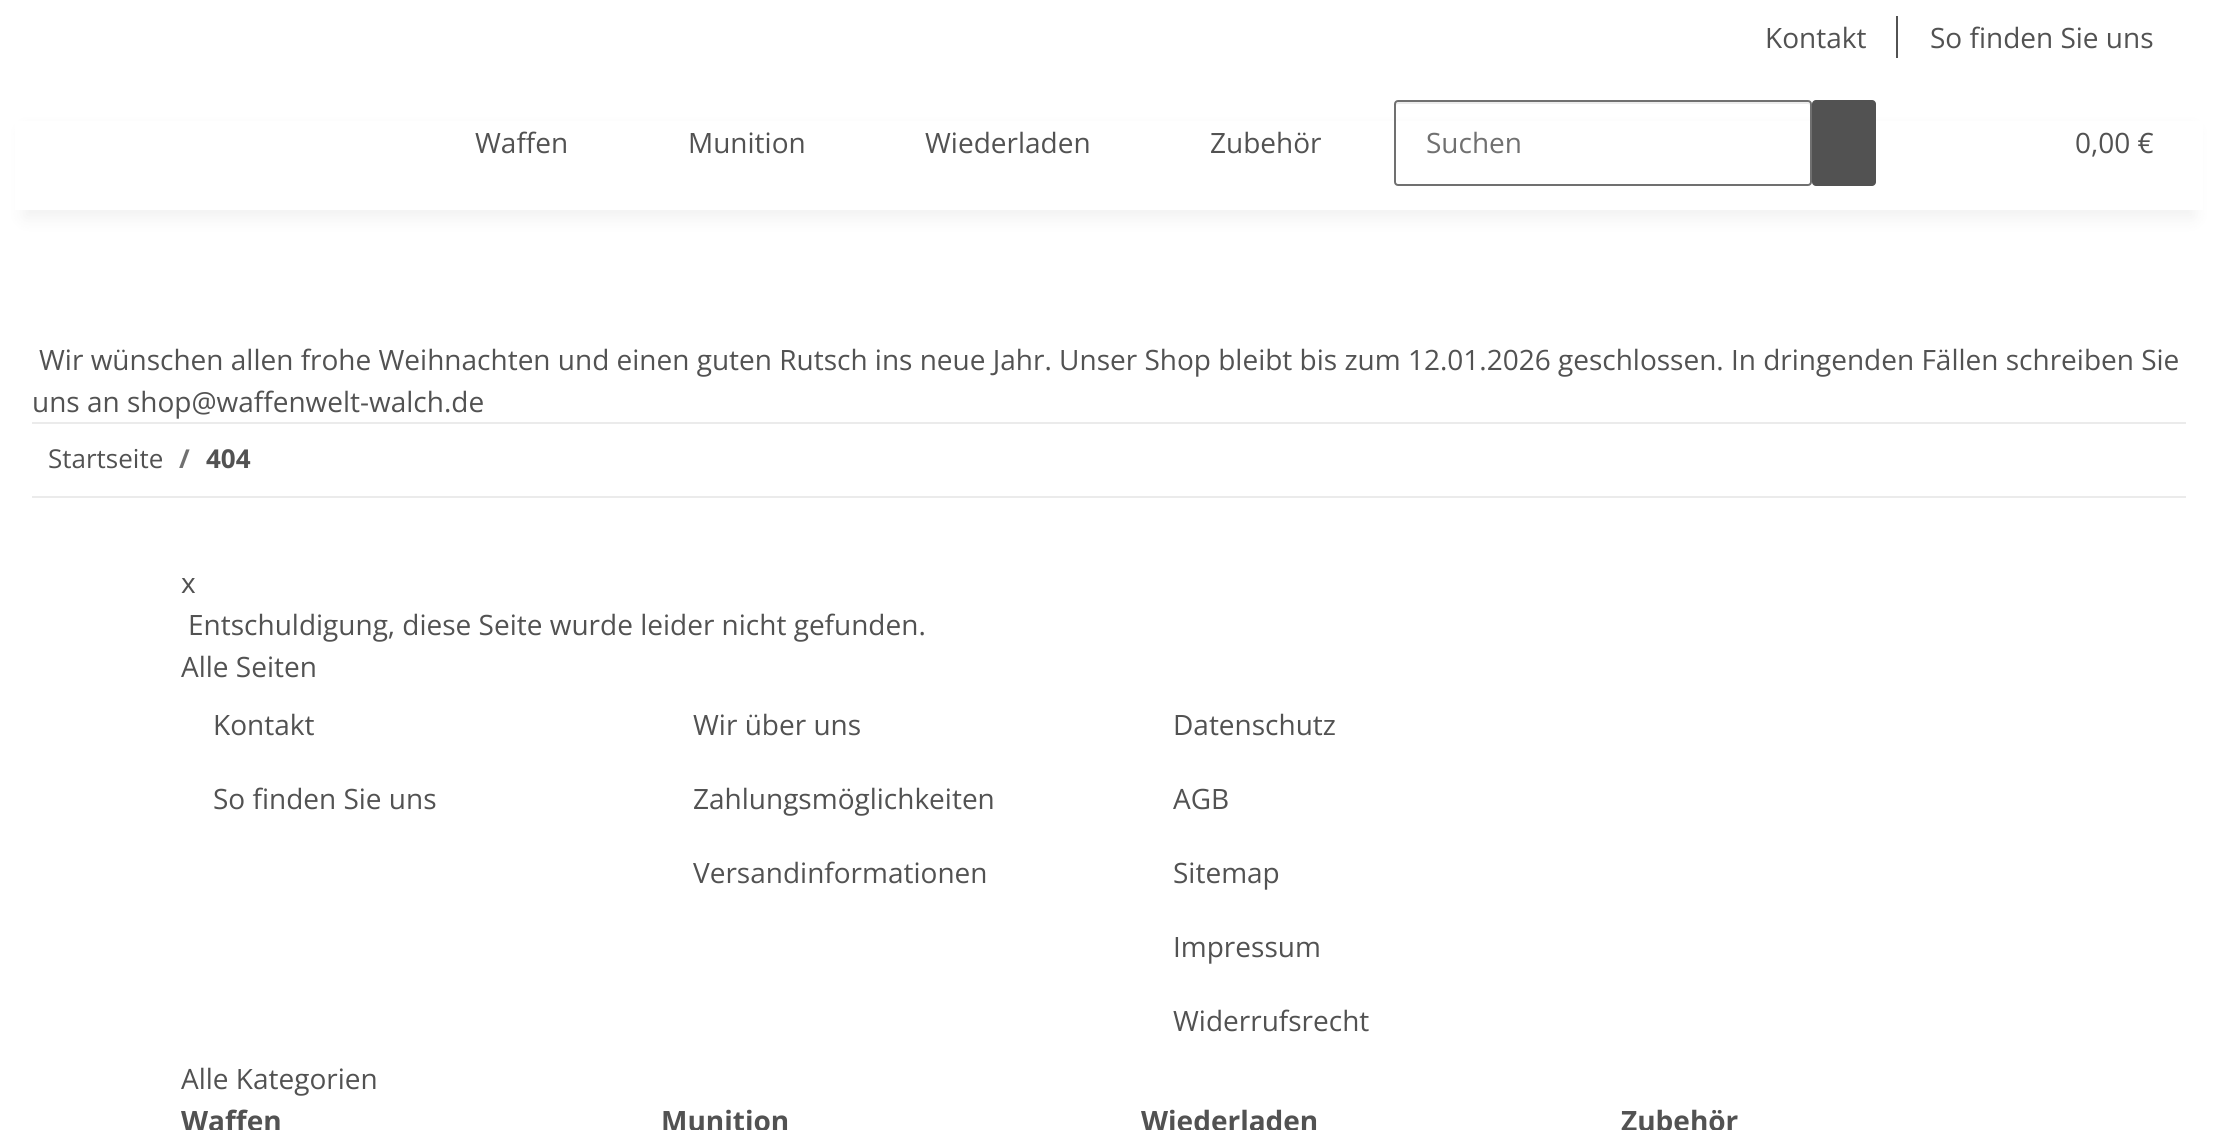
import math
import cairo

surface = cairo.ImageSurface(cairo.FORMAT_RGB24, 2217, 1130)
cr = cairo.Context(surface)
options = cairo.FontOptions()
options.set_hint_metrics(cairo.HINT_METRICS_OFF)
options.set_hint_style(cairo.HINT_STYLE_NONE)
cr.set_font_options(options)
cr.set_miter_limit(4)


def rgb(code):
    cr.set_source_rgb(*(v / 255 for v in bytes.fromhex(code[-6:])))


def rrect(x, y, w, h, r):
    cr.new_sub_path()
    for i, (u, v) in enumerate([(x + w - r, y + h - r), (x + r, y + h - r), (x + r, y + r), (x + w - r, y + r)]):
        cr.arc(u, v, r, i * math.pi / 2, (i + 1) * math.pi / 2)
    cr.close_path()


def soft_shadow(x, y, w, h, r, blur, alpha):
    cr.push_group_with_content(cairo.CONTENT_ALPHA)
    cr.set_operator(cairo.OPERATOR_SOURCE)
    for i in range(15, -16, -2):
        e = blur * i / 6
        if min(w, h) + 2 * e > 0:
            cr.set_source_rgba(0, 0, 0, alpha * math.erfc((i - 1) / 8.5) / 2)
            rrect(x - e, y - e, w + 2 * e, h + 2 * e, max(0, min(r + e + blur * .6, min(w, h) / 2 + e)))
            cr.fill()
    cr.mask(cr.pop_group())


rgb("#ffffff")
cr.paint()
rgb("#525252")
cr.rectangle(1896, 16, 2, 42)
cr.fill()
rgb("#000000")
soft_shadow(24, 130, 2170, 88, 0, 9, 0.06)
rgb("#ffffff")
cr.rectangle(15, 121, 2188, 89)
cr.fill()
rgb("#ececec")
cr.new_path()
cr.move_to(1398, 104)
cr.line_to(1808, 104)
cr.curve_to(1809, 104, 1810, 105, 1810, 106)
cr.curve_to(1810, 104, 1810, 102, 1808, 102)
cr.line_to(1398, 102)
cr.line_to(1396, 103)
cr.line_to(1396, 106)
cr.curve_to(1396, 105, 1397, 104, 1398, 104)
cr.close_path()
cr.fill()
rrect(1395, 101, 416, 84, 3)
rgb("#707070")
cr.stroke()
rgb("#525252")
rrect(1812, 100, 64, 86, 4)
cr.fill()
rgb("#ebebeb")
cr.rectangle(32, 422, 2154, 2)
cr.fill()
cr.rectangle(32, 496, 2154, 2)
cr.fill()
cr.select_font_face("Open Sans")
cr.set_font_size(28)
rgb("#525252")
for x, y, s in [
    (1765, 48, "Kontakt"),
    (1930, 48, "So finden Sie uns"),
    (475, 153, "Waffen"),
    (688, 153, "Munition"),
    (925, 153, "Wiederladen"),
    (1210, 153, "Zubehör"),
]:
    cr.move_to(x, y)
    cr.show_text(s)
rgb("#707070")
cr.move_to(1426, 153)
cr.show_text("Suchen")
rgb("#525252")
for x, y, s in [
    (2075, 153, "0,00 €"),
    (39, 370, "Wir wünschen allen frohe Weihnachten und einen guten Rutsch ins neue Jahr. Unser Shop bleibt bis zum 12.01.2026 geschlossen. In dringenden Fällen schreiben Sie"),
    (32, 412, "uns an shop@waffenwelt-walch.de"),
]:
    cr.move_to(x, y)
    cr.show_text(s)
cr.set_font_size(26)
cr.move_to(48, 468)
cr.show_text("Startseite")
cr.select_font_face("Open Sans", cairo.FONT_SLANT_NORMAL, cairo.FONT_WEIGHT_BOLD)
rgb("#707070")
cr.move_to(179, 468)
cr.show_text("/")
rgb("#525252")
cr.move_to(206, 468)
cr.show_text("404")
cr.select_font_face("Open Sans")
cr.set_font_size(28)
for x, y, s in [
    (181, 593, "x"),
    (188, 635, "Entschuldigung, diese Seite wurde leider nicht gefunden."),
    (181, 677, "Alle Seiten"),
    (213, 735, "Kontakt"),
    (213, 809, "So finden Sie uns"),
    (693, 735, "Wir über uns"),
    (693, 809, "Zahlungsmöglichkeiten"),
    (693, 883, "Versandinformationen"),
    (1173, 735, "Datenschutz"),
    (1173, 809, "AGB"),
    (1173, 883, "Sitemap"),
    (1173, 957, "Impressum"),
    (1173, 1031, "Widerrufsrecht"),
    (181, 1089, "Alle Kategorien"),
]:
    cr.move_to(x, y)
    cr.show_text(s)
cr.select_font_face("Open Sans", cairo.FONT_SLANT_NORMAL, cairo.FONT_WEIGHT_BOLD)
for x, y, s in [
    (181, 1131, "Waffen"),
    (661, 1131, "Munition"),
    (1141, 1131, "Wiederladen"),
    (1621, 1131, "Zubehör"),
]:
    cr.move_to(x, y)
    cr.show_text(s)
surface.write_to_png("page.png")
